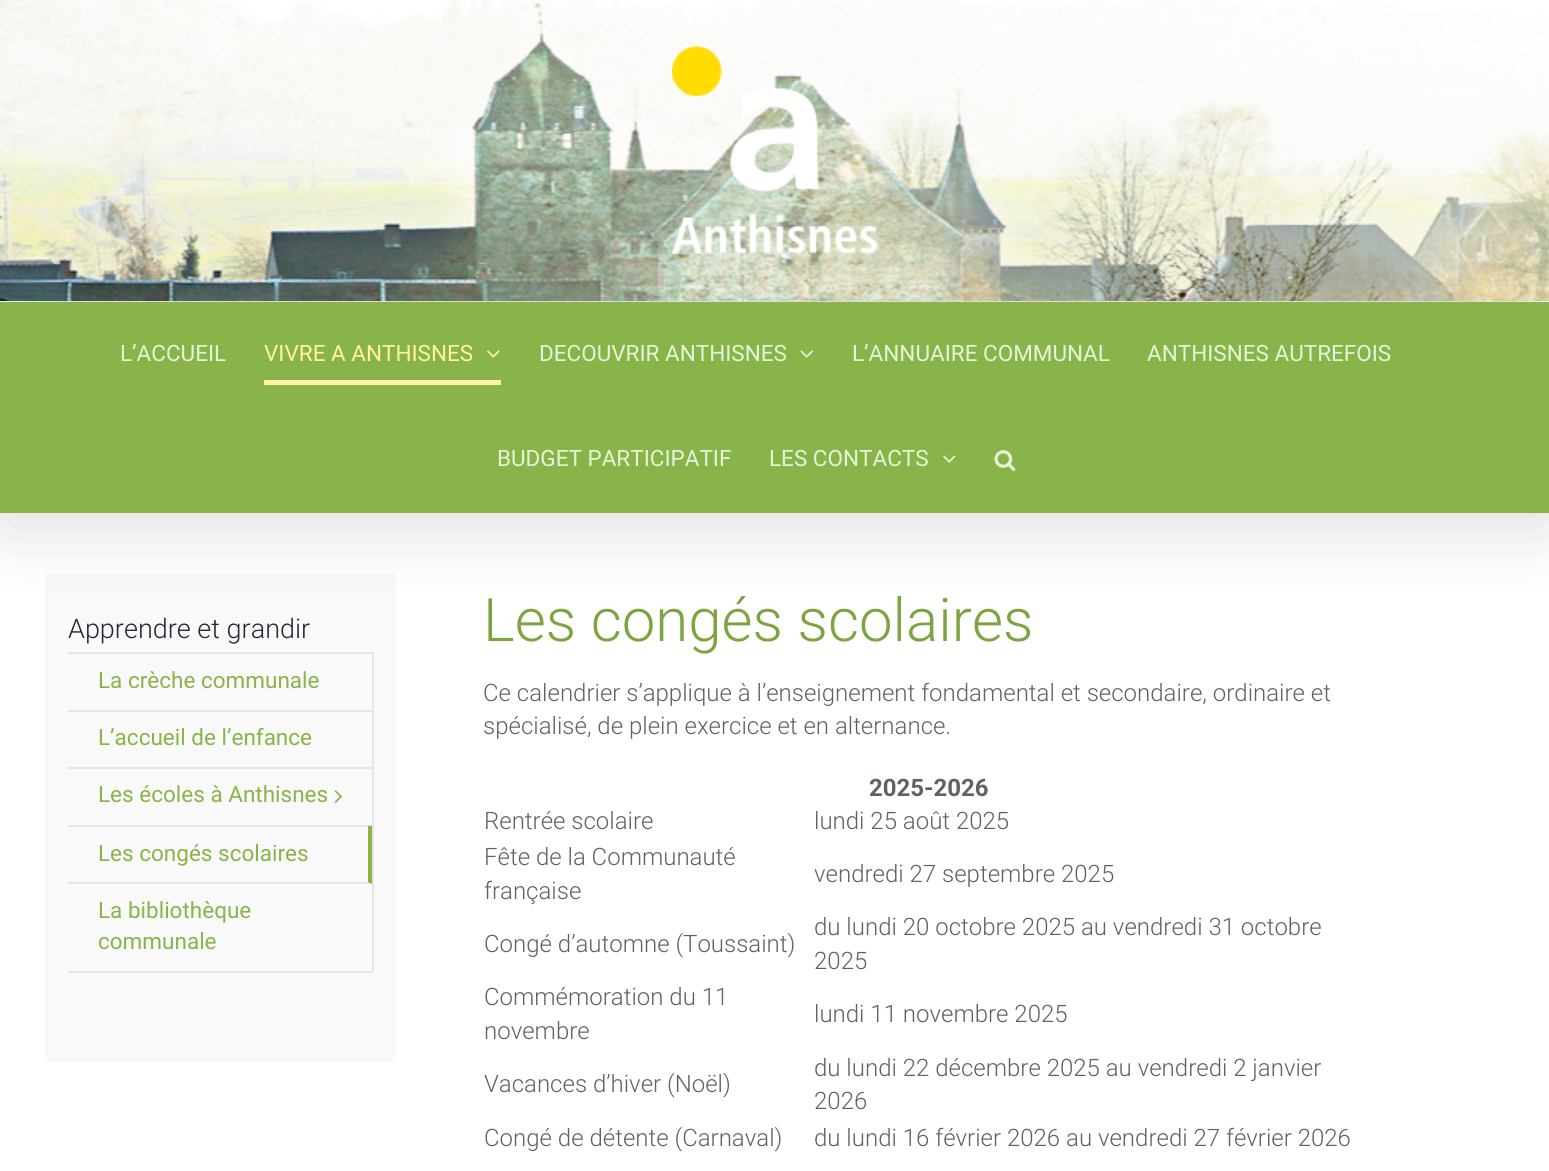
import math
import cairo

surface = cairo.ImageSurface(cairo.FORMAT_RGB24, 1549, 1171)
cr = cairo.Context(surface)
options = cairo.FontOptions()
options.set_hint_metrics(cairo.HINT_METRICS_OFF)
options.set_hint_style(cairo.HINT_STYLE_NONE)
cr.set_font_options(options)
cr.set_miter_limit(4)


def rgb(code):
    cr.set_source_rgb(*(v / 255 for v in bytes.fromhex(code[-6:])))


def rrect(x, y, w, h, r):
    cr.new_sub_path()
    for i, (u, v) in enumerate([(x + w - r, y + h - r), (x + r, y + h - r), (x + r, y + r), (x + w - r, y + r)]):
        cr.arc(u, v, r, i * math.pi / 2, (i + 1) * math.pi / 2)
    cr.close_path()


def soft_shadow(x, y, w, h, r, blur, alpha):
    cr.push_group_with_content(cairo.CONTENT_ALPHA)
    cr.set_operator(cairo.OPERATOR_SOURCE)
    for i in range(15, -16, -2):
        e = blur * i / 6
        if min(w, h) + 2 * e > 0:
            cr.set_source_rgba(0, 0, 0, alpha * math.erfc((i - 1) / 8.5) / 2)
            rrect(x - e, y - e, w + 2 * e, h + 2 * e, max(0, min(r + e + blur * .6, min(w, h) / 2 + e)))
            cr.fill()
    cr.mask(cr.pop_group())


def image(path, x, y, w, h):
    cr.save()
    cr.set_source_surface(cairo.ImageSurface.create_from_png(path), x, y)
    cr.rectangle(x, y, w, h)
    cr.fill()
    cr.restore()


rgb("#ffffff")
cr.paint()
rgb("#f9f9f9")
cr.rectangle(45, 573, 351, 489)
cr.fill()
rgb("#000000")
soft_shadow(3, 18, 1544, 507, 0, 37.5, 0.14)
image("img/1.png", 0, 0, 1549, 301)
image("img/2.png", 672, 46, 206, 208)
rgb("#89b449")
cr.rectangle(0, 302, 1549, 211)
cr.fill()
image("img/3.png", 487, 350, 13, 8)
rgb("#fff3aa")
cr.rectangle(264, 380, 237, 5)
cr.fill()
image("img/4.png", 800, 350, 13, 8)
image("img/5.png", 943, 455, 13, 8)
image("img/6.png", 994, 450, 22, 21)
rgb("#e5e5e5")
cr.new_path()
cr.move_to(68, 652)
cr.line_to(374, 652)
cr.line_to(372, 654)
cr.line_to(68, 654)
cr.close_path()
cr.fill()
cr.set_source_rgba(0, 0, 0, 0.08)
cr.new_path()
cr.move_to(374, 652)
cr.line_to(374, 972)
cr.line_to(372, 972)
cr.line_to(372, 654)
cr.close_path()
cr.fill()
for x, y, w, h, color in [
    (68, 710, 304, 2, "#e5e5e5"),
    (68, 767, 304, 2, "#e5e5e5"),
    (68, 825, 304, 2, "#e5e5e5"),
]:
    rgb(color)
    cr.rectangle(x, y, w, h)
    cr.fill()
image("img/7.png", 334, 790, 8, 13)
rgb("#89b449")
cr.new_path()
cr.move_to(372, 826)
cr.line_to(372, 884)
cr.line_to(368, 882)
cr.line_to(368, 826)
cr.close_path()
cr.fill()
cr.set_source_rgba(0, 0, 0, 0.08)
cr.new_path()
cr.move_to(372, 884)
cr.line_to(68, 884)
cr.line_to(68, 882)
cr.line_to(368, 882)
cr.close_path()
cr.fill()
rgb("#e5e5e5")
cr.rectangle(68, 971, 304, 2)
cr.fill()
cr.select_font_face("Roboto")
cr.set_font_size(22.5)
rgb("#e8f4d8")
cr.move_to(120, 361)
cr.show_text("L’ACCUEIL")
rgb("#fff3aa")
cr.move_to(264, 361)
cr.show_text("VIVRE A ANTHISNES")
rgb("#e8f4d8")
for x, y, s in [
    (539, 361, "DECOUVRIR ANTHISNES"),
    (852, 361, "L’ANNUAIRE COMMUNAL"),
    (1147, 361, "ANTHISNES AUTREFOIS"),
    (497, 466, "BUDGET PARTICIPATIF"),
    (769, 466, "LES CONTACTS"),
]:
    cr.move_to(x, y)
    cr.show_text(s)
cr.select_font_face("Roboto Light")
cr.set_font_size(27)
rgb("#212934")
cr.move_to(68, 638)
cr.show_text("Apprendre et grandir")
cr.select_font_face("Roboto")
cr.set_font_size(22.5)
rgb("#89b449")
for x, y, s in [
    (98, 688, "La crèche communale"),
    (98, 745, "L’accueil de l’enfance"),
    (98, 802, "Les écoles à Anthisnes"),
    (98, 861, "Les congés scolaires"),
    (98, 918, "La bibliothèque"),
    (98, 949, "communale"),
]:
    cr.move_to(x, y)
    cr.show_text(s)
cr.select_font_face("Roboto Light")
cr.set_font_size(60)
rgb("#7ca441")
cr.move_to(483, 641)
cr.show_text("Les congés scolaires")
cr.set_font_size(24)
rgb("#5c6265")
cr.move_to(483, 701)
cr.show_text("Ce calendrier s’applique à l’enseignement fondamental et secondaire, ordinaire et")
cr.move_to(483, 734)
cr.show_text("spécialisé, de plein exercice et en alternance.")
cr.select_font_face("Roboto", cairo.FONT_SLANT_NORMAL, cairo.FONT_WEIGHT_BOLD)
cr.move_to(869, 796)
cr.show_text("2025-2026")
cr.select_font_face("Roboto Light")
for x, y, s in [
    (484, 829, "Rentrée scolaire"),
    (814, 829, "lundi 25 août 2025"),
    (484, 865, "Fête de la Communauté"),
    (484, 899, "française"),
    (814, 882, "vendredi 27 septembre 2025"),
    (484, 952, "Congé d’automne (Toussaint)"),
    (814, 935, "du lundi 20 octobre 2025 au vendredi 31 octobre"),
    (814, 969, "2025"),
    (484, 1005, "Commémoration du 11"),
    (484, 1039, "novembre"),
    (814, 1022, "lundi 11 novembre 2025"),
    (484, 1092, "Vacances d’hiver (Noël)"),
    (814, 1076, "du lundi 22 décembre 2025 au vendredi 2 janvier"),
    (814, 1109, "2026"),
    (484, 1146, "Congé de détente (Carnaval)"),
    (814, 1146, "du lundi 16 février 2026 au vendredi 27 février 2026"),
]:
    cr.move_to(x, y)
    cr.show_text(s)
surface.write_to_png("page.png")
